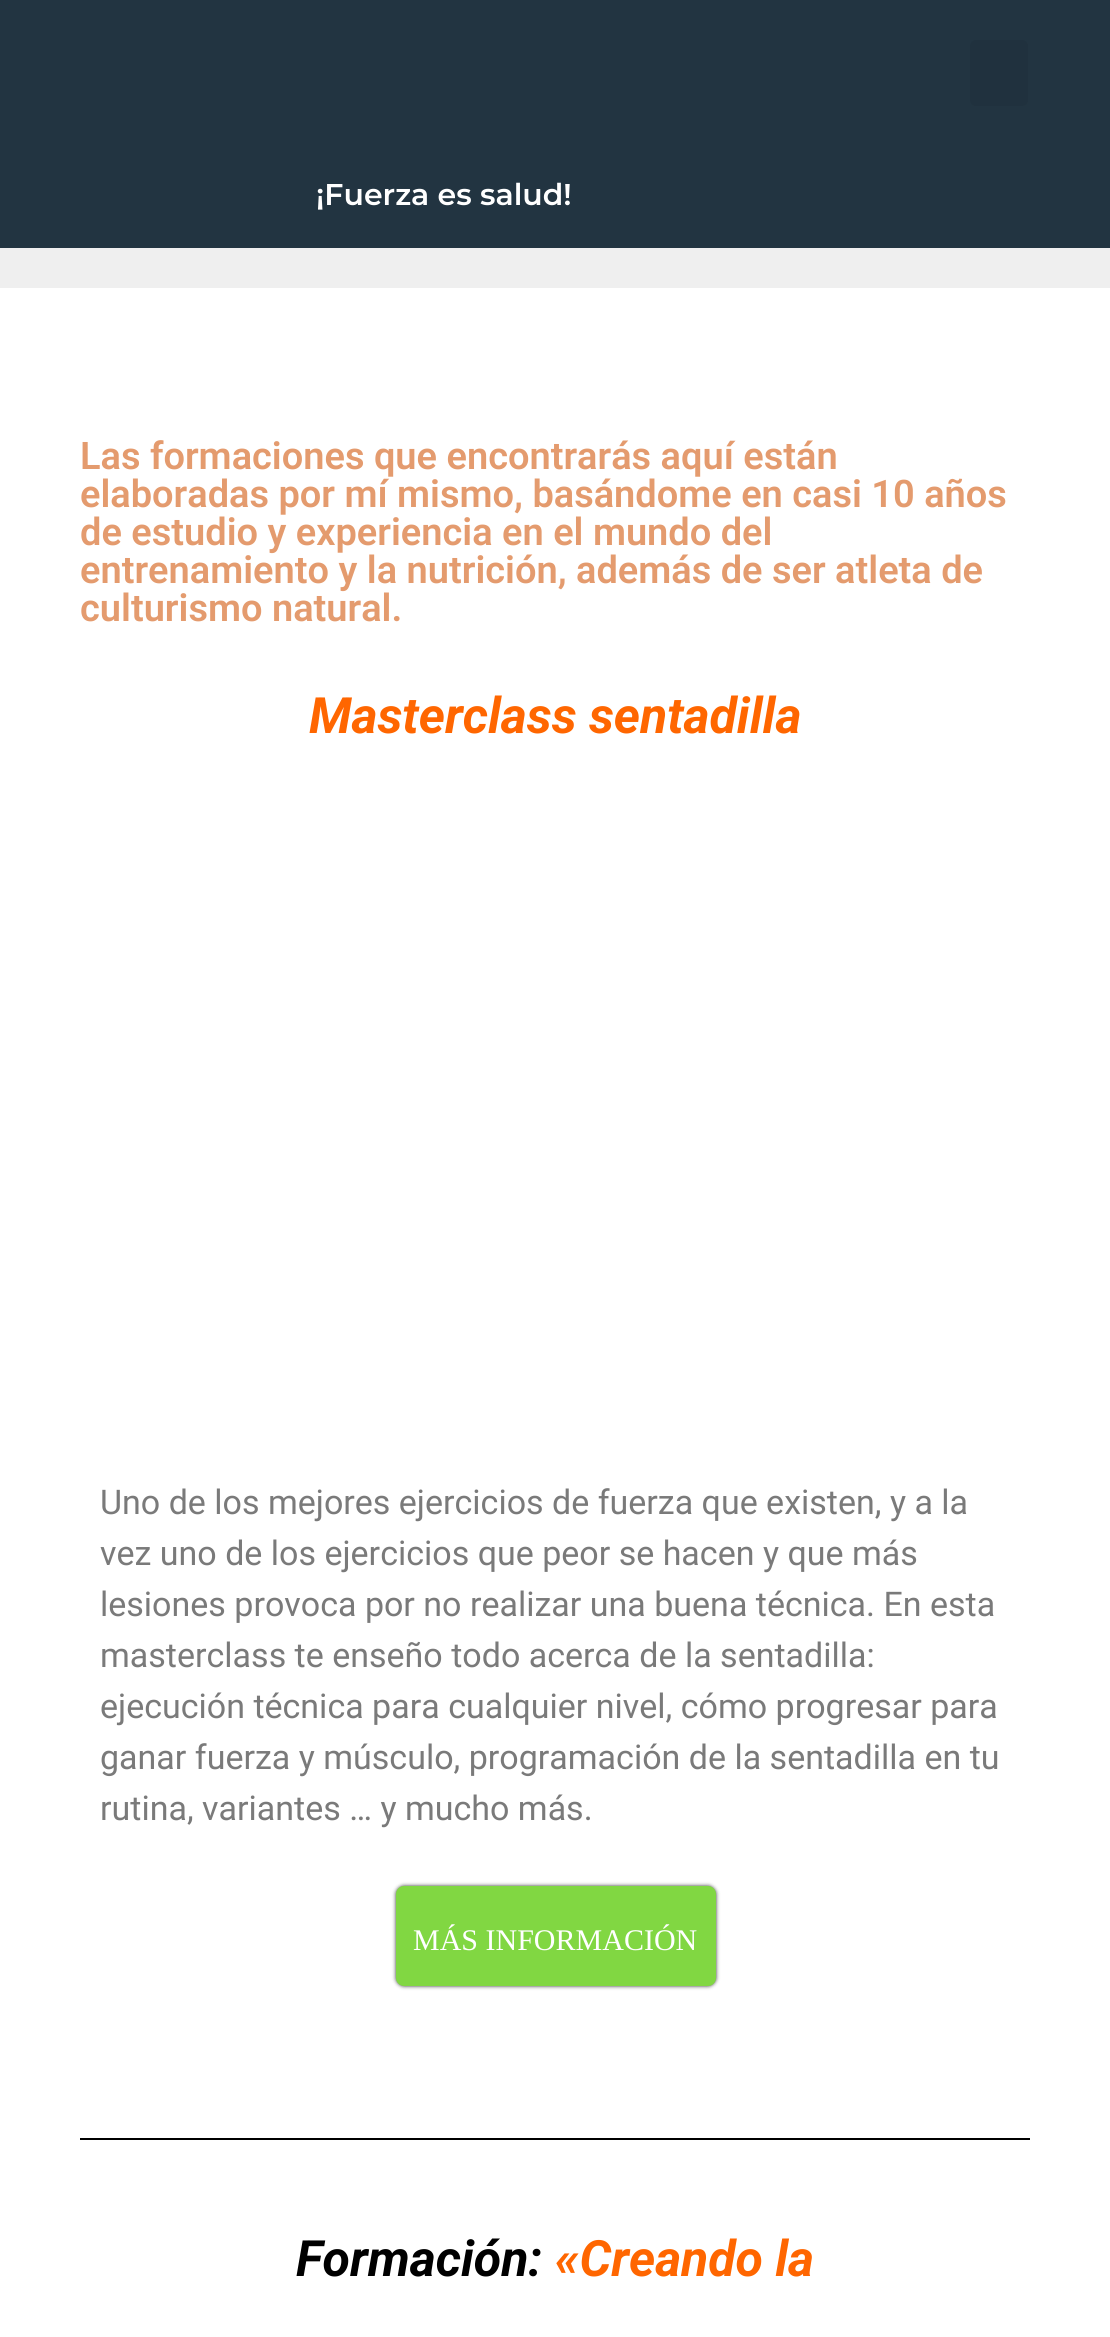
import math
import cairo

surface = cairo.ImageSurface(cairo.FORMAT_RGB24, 1110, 2337)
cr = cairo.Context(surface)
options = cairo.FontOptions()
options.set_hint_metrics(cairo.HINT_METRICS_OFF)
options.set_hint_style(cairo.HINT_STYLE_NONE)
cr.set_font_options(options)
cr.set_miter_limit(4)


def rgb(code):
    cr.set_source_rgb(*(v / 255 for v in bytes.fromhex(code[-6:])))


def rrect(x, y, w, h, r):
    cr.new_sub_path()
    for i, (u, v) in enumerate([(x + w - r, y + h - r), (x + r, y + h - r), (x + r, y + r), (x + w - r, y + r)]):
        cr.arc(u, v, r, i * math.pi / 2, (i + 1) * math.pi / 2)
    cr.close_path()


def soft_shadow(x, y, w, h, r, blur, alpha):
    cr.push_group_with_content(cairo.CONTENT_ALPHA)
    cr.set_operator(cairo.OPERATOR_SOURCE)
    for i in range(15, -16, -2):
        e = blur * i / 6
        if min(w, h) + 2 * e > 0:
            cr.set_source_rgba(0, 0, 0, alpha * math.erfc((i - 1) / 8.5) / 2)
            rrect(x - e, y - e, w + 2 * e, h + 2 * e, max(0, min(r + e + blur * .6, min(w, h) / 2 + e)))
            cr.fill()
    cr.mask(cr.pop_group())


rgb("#efefef")
cr.paint()
rgb("#223441")
cr.rectangle(0, 0, 1110, 248)
cr.fill()
rgb("#20313e")
rrect(970, 40, 58, 66, 6)
cr.fill()
rgb("#ffffff")
cr.rectangle(0, 288, 1110, 2049)
cr.fill()
rgb("#333333")
soft_shadow(396, 1886, 320, 100, 8, 2, 1)
rgb("#81d742")
rrect(398, 1888, 316, 96, 6)
cr.fill_preserve()
cr.set_line_width(4)
cr.stroke()
rgb("#000000")
cr.rectangle(80, 2138, 950, 2)
cr.fill()
cr.select_font_face("Montserrat SemiBold")
cr.set_font_size(30)
rgb("#ffffff")
cr.move_to(316, 205)
cr.show_text("¡Fuerza es salud!")
cr.select_font_face("Roboto SemiBold")
cr.set_font_size(38)
rgb("#e49b6e")
for x, y, s in [
    (80, 469, "Las formaciones que encontrarás aquí están"),
    (80, 507, "elaboradas por mí mismo, basándome en casi 10 años"),
    (80, 545, "de estudio y experiencia en el mundo del"),
    (80, 583, "entrenamiento y la nutrición, además de ser atleta de"),
    (80, 621, "culturismo natural."),
]:
    cr.move_to(x, y)
    cr.show_text(s)
cr.select_font_face("Roboto", cairo.FONT_SLANT_ITALIC, cairo.FONT_WEIGHT_BOLD)
cr.set_font_size(50)
rgb("#ff6600")
cr.move_to(309, 733)
cr.show_text("Masterclass sentadilla")
cr.select_font_face("Roboto")
cr.set_font_size(34)
rgb("#7a7a7a")
for x, y, s in [
    (100, 1514, "Uno de los mejores ejercicios de fuerza que existen, y a la"),
    (100, 1565, "vez uno de los ejercicios que peor se hacen y que más"),
    (100, 1616, "lesiones provoca por no realizar una buena técnica. En esta"),
    (100, 1667, "masterclass te enseño todo acerca de la sentadilla:"),
    (100, 1718, "ejecución técnica para cualquier nivel, cómo progresar para"),
    (100, 1769, "ganar fuerza y músculo, programación de la sentadilla en tu"),
    (100, 1820, "rutina, variantes … y mucho más."),
]:
    cr.move_to(x, y)
    cr.show_text(s)
cr.select_font_face("Liberation Serif")
cr.set_font_size(30)
rgb("#ffffff")
cr.move_to(413, 1950)
cr.show_text("MÁS INFORMACIÓN")
cr.select_font_face("Roboto", cairo.FONT_SLANT_ITALIC, cairo.FONT_WEIGHT_BOLD)
cr.set_font_size(50)
rgb("#000000")
cr.move_to(296, 2276)
cr.show_text("Formación:")
rgb("#ff6600")
cr.move_to(555, 2276)
cr.show_text("«Creando la")
surface.write_to_png("page.png")
